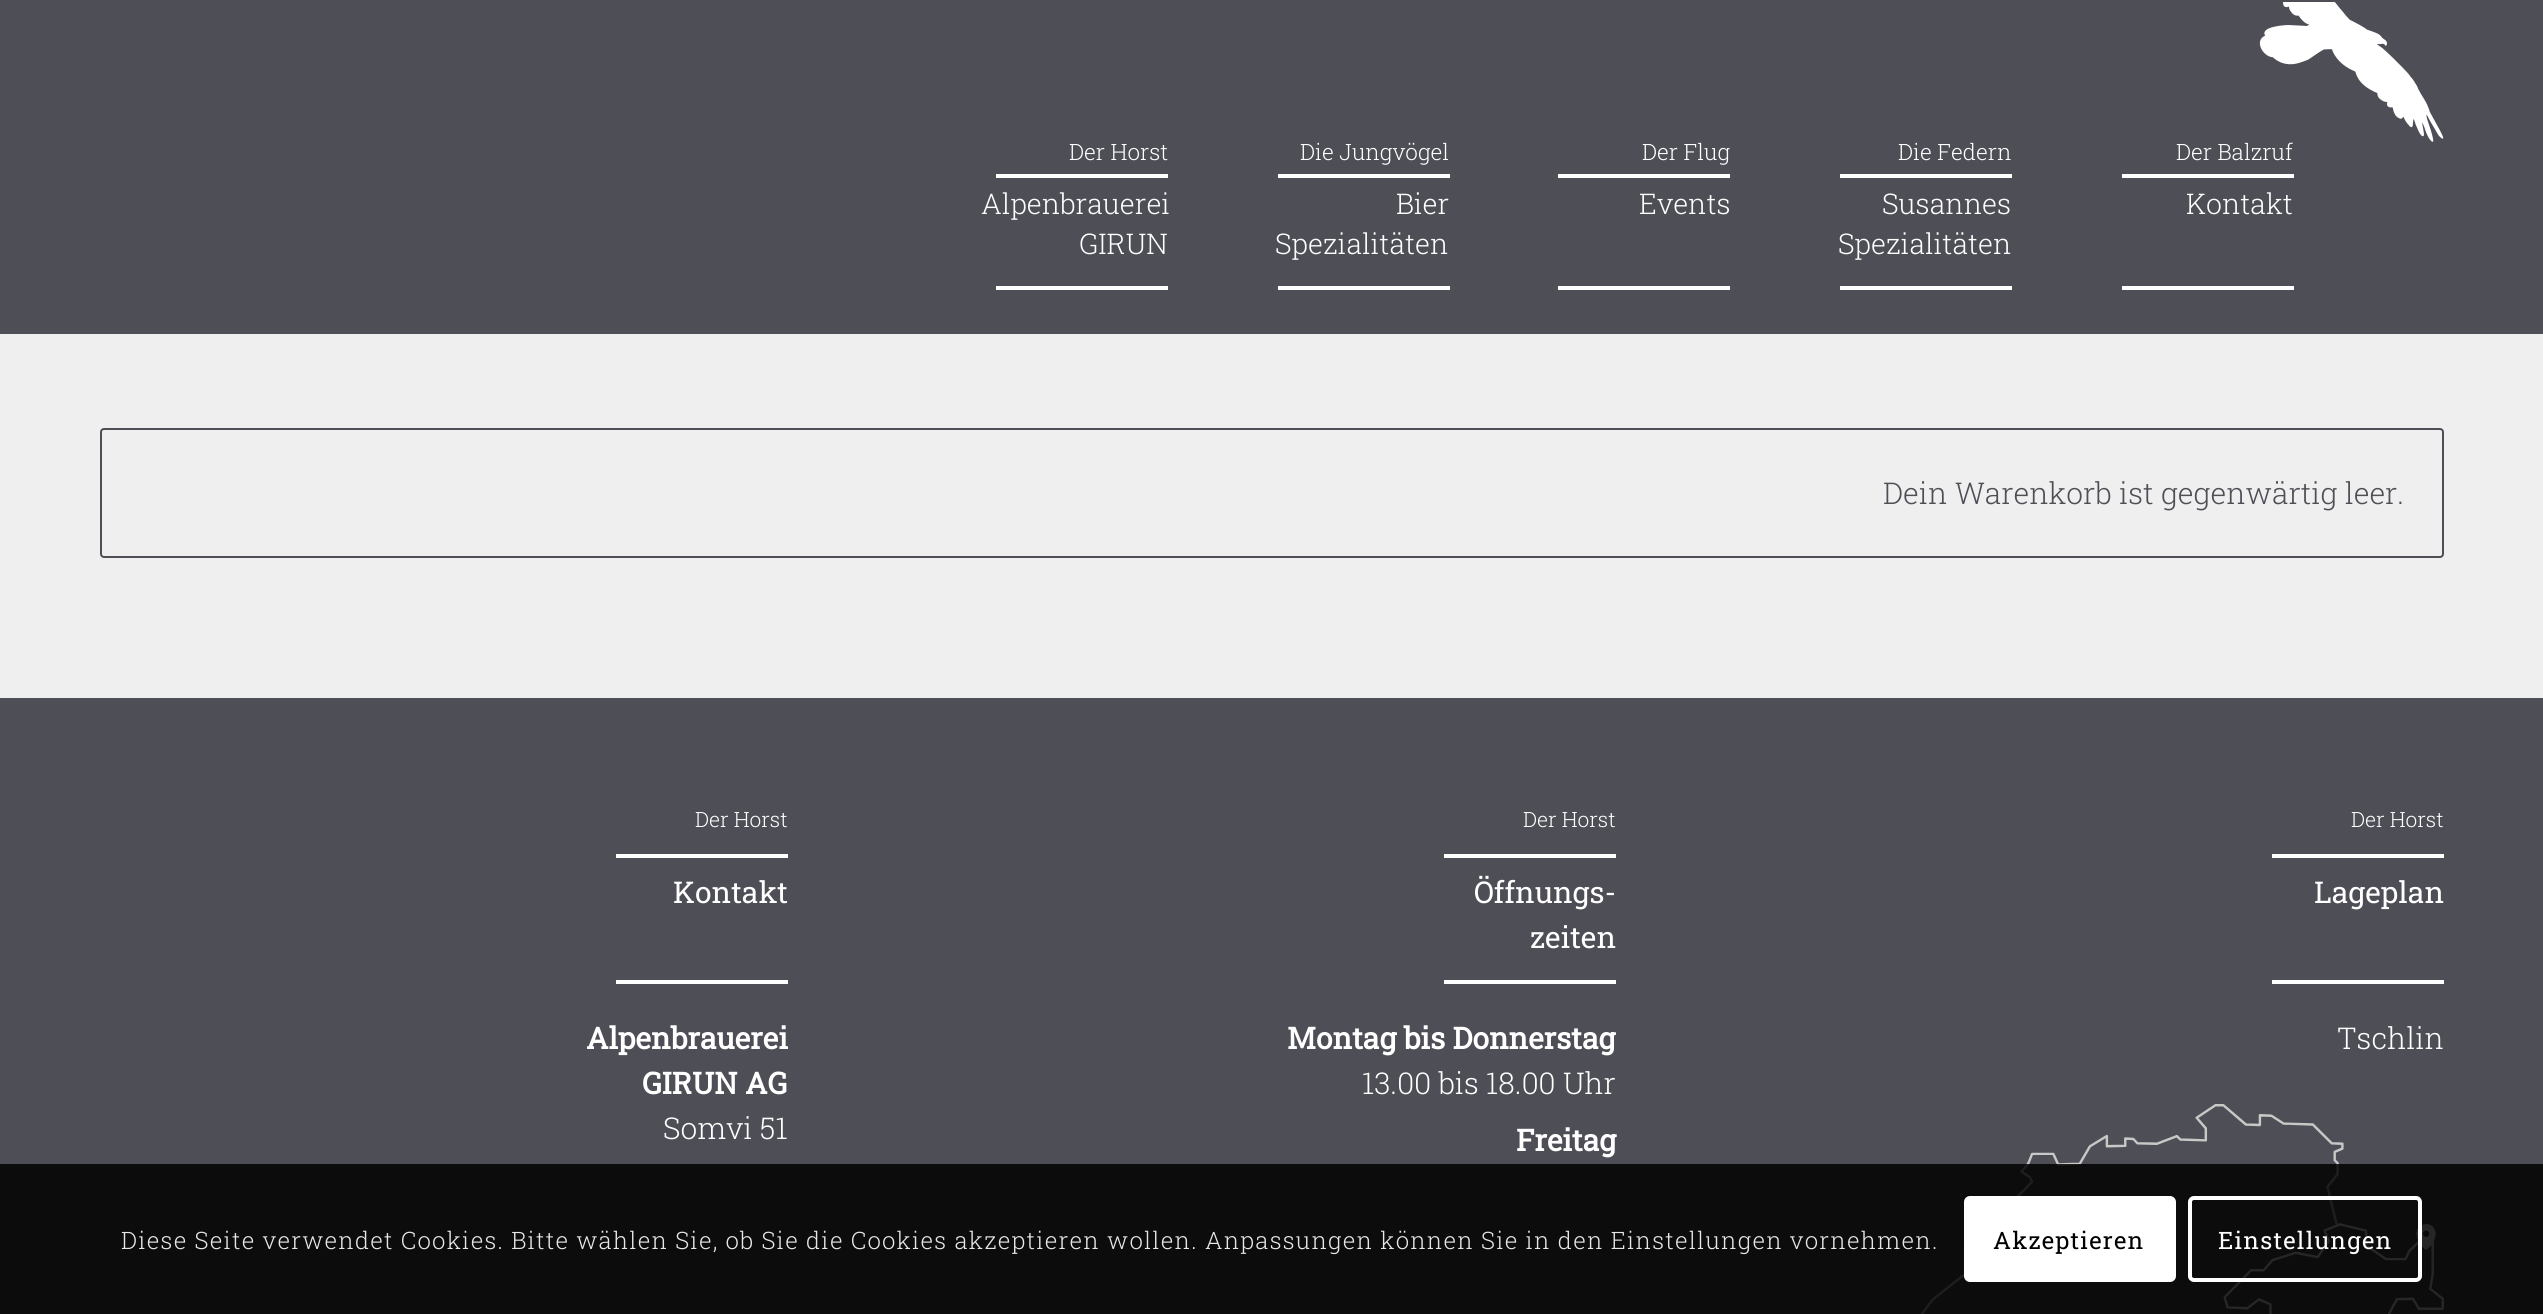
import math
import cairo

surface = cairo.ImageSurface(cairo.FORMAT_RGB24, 2543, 1314)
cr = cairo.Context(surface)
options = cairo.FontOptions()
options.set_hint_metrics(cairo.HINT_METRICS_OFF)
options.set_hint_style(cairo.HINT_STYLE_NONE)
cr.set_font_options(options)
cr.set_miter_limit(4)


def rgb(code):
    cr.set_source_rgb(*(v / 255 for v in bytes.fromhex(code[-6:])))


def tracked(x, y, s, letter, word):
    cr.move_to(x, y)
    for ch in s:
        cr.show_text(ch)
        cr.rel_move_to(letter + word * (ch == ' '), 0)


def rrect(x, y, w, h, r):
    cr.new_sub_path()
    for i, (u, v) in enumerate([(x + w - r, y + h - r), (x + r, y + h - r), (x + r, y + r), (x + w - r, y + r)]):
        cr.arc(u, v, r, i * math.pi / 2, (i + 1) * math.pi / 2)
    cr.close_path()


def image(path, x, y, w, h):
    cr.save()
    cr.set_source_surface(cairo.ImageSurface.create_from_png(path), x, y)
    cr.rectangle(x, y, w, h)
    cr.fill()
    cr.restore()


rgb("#4e4e56")
cr.paint()
image("img/1.png", 2259, 2, 185, 140)
for x, y, w, h, color in [
    (996, 174, 172, 4, "#ffffff"),
    (996, 286, 172, 4, "#ffffff"),
    (1278, 174, 172, 4, "#ffffff"),
    (1278, 286, 172, 4, "#ffffff"),
    (1558, 174, 172, 4, "#ffffff"),
    (1558, 286, 172, 4, "#ffffff"),
    (1840, 174, 172, 4, "#ffffff"),
    (1840, 286, 172, 4, "#ffffff"),
    (2122, 174, 172, 4, "#ffffff"),
    (2122, 286, 172, 4, "#ffffff"),
    (0, 334, 2543, 364, "#efefef"),
]:
    rgb(color)
    cr.rectangle(x, y, w, h)
    cr.fill()
rrect(101, 429, 2342, 128, 3)
rgb("#4e4e56")
cr.stroke()
for x, y, w, h, color in [
    (616, 854, 172, 4, "#ffffff"),
    (616, 980, 172, 4, "#ffffff"),
    (1444, 854, 172, 4, "#ffffff"),
    (1444, 980, 172, 4, "#ffffff"),
    (2272, 854, 172, 4, "#ffffff"),
    (2272, 980, 172, 4, "#ffffff"),
]:
    rgb(color)
    cr.rectangle(x, y, w, h)
    cr.fill()
image("img/2.png", 1920, 1104, 524, 210)
cr.set_source_rgba(0, 0, 0, 0.85)
cr.rectangle(0, 1164, 2543, 150)
cr.fill()
rgb("#ffffff")
rrect(1964, 1196, 212, 86, 6)
cr.fill()
rrect(2190, 1198, 230, 82, 4)
cr.set_line_width(4)
cr.stroke()
cr.select_font_face("Roboto Slab Light")
cr.set_font_size(22.5)
cr.move_to(1069, 160)
cr.show_text("Der Horst")
cr.set_font_size(28.5)
cr.move_to(981, 214)
cr.show_text("Alpenbrauerei")
cr.move_to(1079, 254)
cr.show_text("GIRUN")
cr.set_font_size(22.5)
cr.move_to(1300, 160)
cr.show_text("Die Jungvögel")
cr.set_font_size(28.5)
cr.move_to(1396, 214)
cr.show_text("Bier")
cr.move_to(1275, 254)
cr.show_text("Spezialitäten")
cr.set_font_size(22.5)
cr.move_to(1642, 160)
cr.show_text("Der Flug")
cr.set_font_size(28.5)
cr.move_to(1639, 214)
cr.show_text("Events")
cr.set_font_size(22.5)
cr.move_to(1898, 160)
cr.show_text("Die Federn")
cr.set_font_size(28.5)
cr.move_to(1882, 214)
cr.show_text("Susannes")
cr.move_to(1838, 254)
cr.show_text("Spezialitäten")
cr.set_font_size(22.5)
cr.move_to(2176, 160)
cr.show_text("Der Balzruf")
cr.set_font_size(28.5)
cr.move_to(2186, 214)
cr.show_text("Kontakt")
cr.set_font_size(30)
rgb("#4e4e56")
cr.move_to(1883, 504)
cr.show_text("Dein Warenkorb ist gegenwärtig leer.")
cr.set_font_size(21)
rgb("#ffffff")
cr.move_to(695, 827)
cr.show_text("Der Horst")
cr.select_font_face("Roboto Slab")
cr.set_font_size(30)
cr.move_to(673, 903)
cr.show_text("Kontakt")
cr.select_font_face("Roboto Slab", cairo.FONT_SLANT_NORMAL, cairo.FONT_WEIGHT_BOLD)
cr.move_to(586, 1049)
cr.show_text("Alpenbrauerei")
cr.move_to(642, 1094)
cr.show_text("GIRUN AG")
cr.select_font_face("Roboto Slab Light")
cr.move_to(663, 1139)
cr.show_text("Somvi 51")
cr.set_font_size(21)
cr.move_to(1523, 827)
cr.show_text("Der Horst")
cr.select_font_face("Roboto Slab")
cr.set_font_size(30)
cr.move_to(1474, 903)
cr.show_text("Öffnungs-")
cr.move_to(1530, 948)
cr.show_text("zeiten")
cr.select_font_face("Roboto Slab", cairo.FONT_SLANT_NORMAL, cairo.FONT_WEIGHT_BOLD)
cr.move_to(1287, 1049)
cr.show_text("Montag bis Donnerstag")
cr.select_font_face("Roboto Slab Light")
cr.move_to(1362, 1094)
cr.show_text("13.00 bis 18.00 Uhr")
cr.select_font_face("Roboto Slab", cairo.FONT_SLANT_NORMAL, cairo.FONT_WEIGHT_BOLD)
cr.move_to(1516, 1151)
cr.show_text("Freitag")
cr.select_font_face("Roboto Slab Light")
cr.set_font_size(21)
cr.move_to(2351, 827)
cr.show_text("Der Horst")
cr.select_font_face("Roboto Slab")
cr.set_font_size(30)
cr.move_to(2314, 903)
cr.show_text("Lageplan")
cr.select_font_face("Roboto Slab Light")
cr.move_to(2337, 1049)
cr.show_text("Tschlin")
cr.set_font_size(24)
rgb("#e7e7e7")
tracked(121, 1249, "Diese Seite verwendet Cookies. Bitte wählen Sie, ob Sie die Cookies akzeptieren wollen. Anpassungen können Sie in den Einstellungen vornehmen.", 1.2, 0)
cr.select_font_face("Roboto Slab")
rgb("#000000")
tracked(1993, 1249, "Akzeptieren", 1.2, 0)
rgb("#ffffff")
tracked(2218, 1249, "Einstellungen", 1.2, 0)
surface.write_to_png("page.png")
